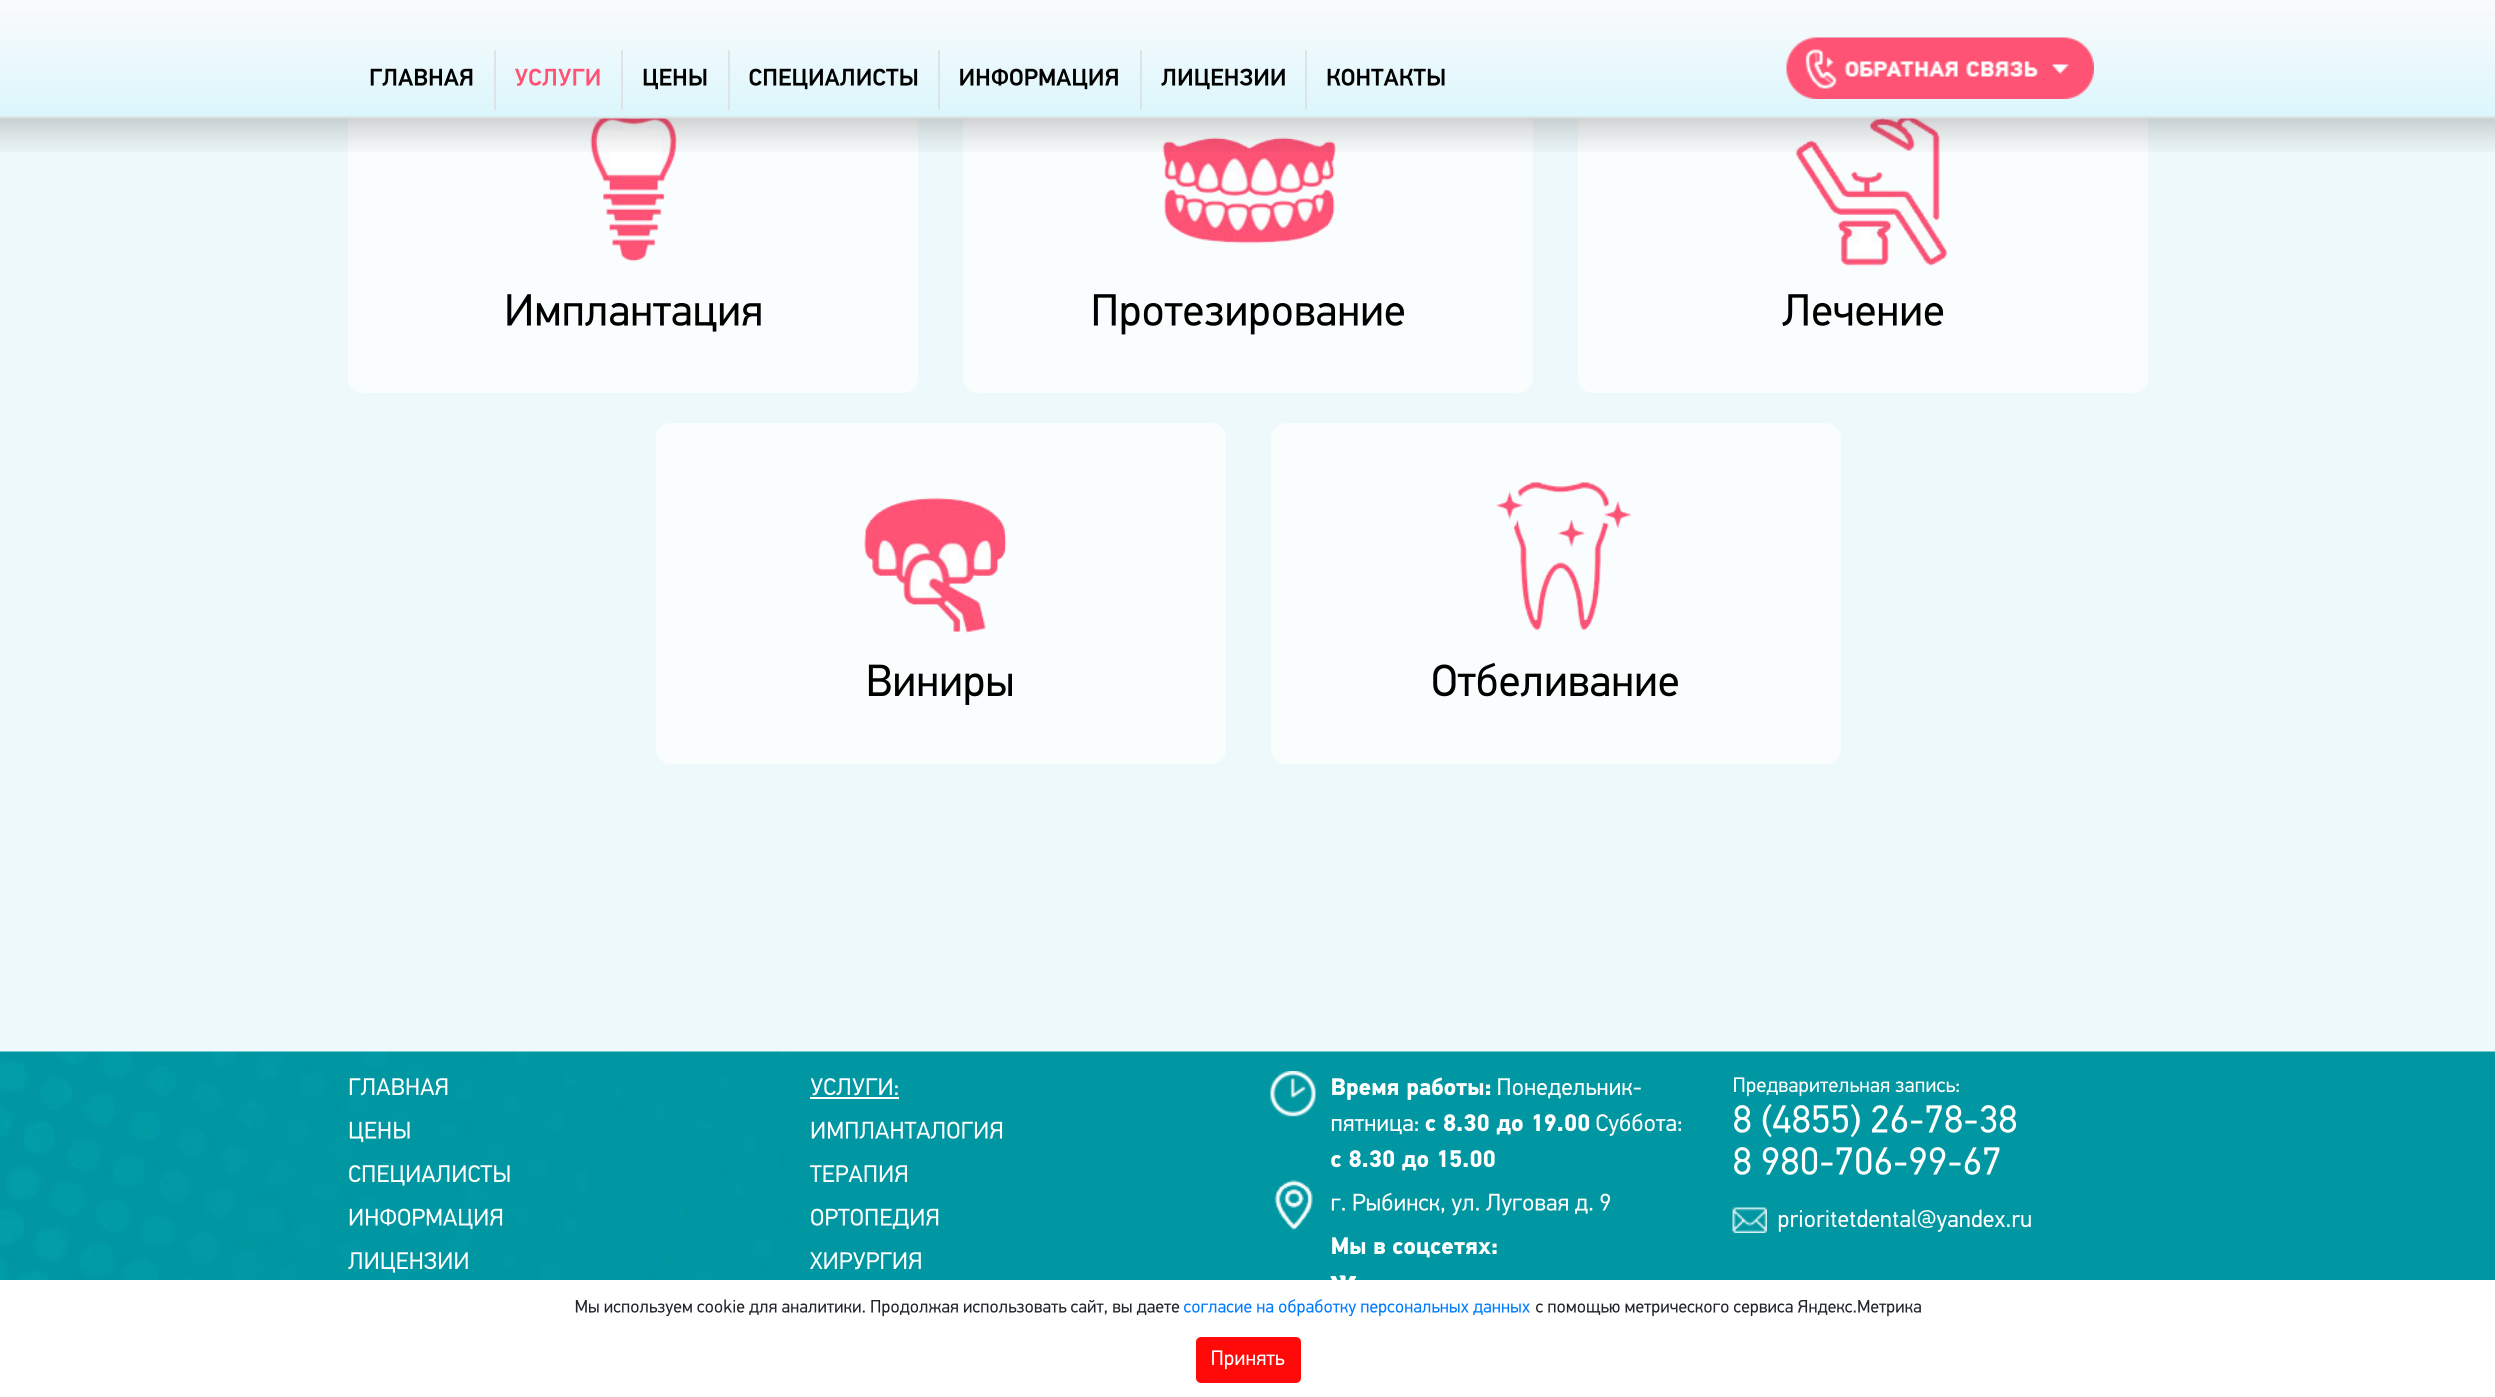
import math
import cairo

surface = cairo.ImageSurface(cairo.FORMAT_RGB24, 2495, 1397)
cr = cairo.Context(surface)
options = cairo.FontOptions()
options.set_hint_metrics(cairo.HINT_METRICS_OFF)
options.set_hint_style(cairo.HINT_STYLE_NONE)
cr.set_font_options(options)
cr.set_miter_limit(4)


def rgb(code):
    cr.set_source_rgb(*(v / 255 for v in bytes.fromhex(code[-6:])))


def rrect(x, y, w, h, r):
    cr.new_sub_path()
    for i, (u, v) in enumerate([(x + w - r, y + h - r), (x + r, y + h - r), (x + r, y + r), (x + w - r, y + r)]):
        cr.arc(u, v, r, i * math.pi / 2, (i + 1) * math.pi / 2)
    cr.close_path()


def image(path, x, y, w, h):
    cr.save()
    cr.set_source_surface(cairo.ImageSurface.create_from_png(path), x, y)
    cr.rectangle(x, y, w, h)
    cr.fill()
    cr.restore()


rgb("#eef9fb")
cr.paint()
rgb("#fafdfe")
rrect(348, 54, 570, 339, 15)
cr.fill()
image("img/10.png", 590, 118, 87, 144)
rrect(963, 54, 570, 339, 15)
cr.fill()
image("img/12.png", 1162, 137, 174, 107)
rrect(1578, 54, 570, 339, 15)
cr.fill()
image("img/14.png", 1795, 118, 153, 148)
image("img/1.png", 0, 0, 2495, 152)
image("img/2.png", 370, 68, 103, 18)
rgb("#dee3e5")
cr.rectangle(494, 50, 2, 60)
cr.fill()
image("img/3.png", 515, 68, 85, 18)
cr.rectangle(621, 50, 2, 60)
cr.fill()
image("img/4.png", 643, 68, 64, 22)
cr.rectangle(728, 50, 2, 60)
cr.fill()
image("img/5.png", 749, 68, 169, 22)
cr.rectangle(938, 50, 2, 60)
cr.fill()
image("img/6.png", 960, 68, 158, 22)
cr.rectangle(1140, 50, 2, 60)
cr.fill()
image("img/7.png", 1161, 68, 124, 22)
cr.rectangle(1305, 50, 2, 60)
cr.fill()
image("img/8.png", 1327, 68, 118, 18)
image("img/9.png", 1786, 37, 308, 62)
image("img/11.png", 507, 294, 254, 38)
image("img/13.png", 1093, 294, 311, 41)
image("img/15.png", 1782, 294, 162, 32)
rgb("#fafdfe")
rrect(656, 423, 570, 341, 15)
cr.fill()
image("img/16.png", 864, 497, 143, 136)
image("img/17.png", 868, 664, 144, 41)
rrect(1271, 423, 570, 341, 15)
cr.fill()
image("img/18.png", 1496, 482, 136, 149)
image("img/19.png", 1433, 662, 245, 35)
image("img/20.png", 0, 1051, 2495, 229)
image("img/21.png", 349, 1078, 99, 18)
image("img/22.png", 349, 1121, 61, 22)
image("img/23.png", 349, 1165, 161, 21)
image("img/24.png", 349, 1208, 154, 22)
image("img/25.png", 348, 1252, 120, 21)
image("img/26.png", 810, 1078, 88, 18)
rgb("#ffffff")
cr.rectangle(810, 1097, 89, 2)
cr.fill()
image("img/27.png", 811, 1121, 192, 18)
image("img/28.png", 810, 1165, 97, 17)
image("img/29.png", 811, 1208, 128, 22)
image("img/30.png", 810, 1252, 111, 18)
image("img/31.png", 1270, 1071, 46, 46)
image("img/32.png", 1332, 1077, 159, 23)
image("img/33.png", 1498, 1078, 143, 21)
image("img/34.png", 1331, 1119, 87, 16)
image("img/35.png", 1425, 1114, 165, 21)
image("img/36.png", 1596, 1113, 85, 23)
image("img/37.png", 1331, 1150, 164, 21)
image("img/38.png", 1274, 1180, 39, 50)
image("img/39.png", 1331, 1192, 280, 24)
image("img/40.png", 1332, 1237, 165, 21)
image("img/41.png", 1330, 1275, 27, 5)
image("img/42.png", 1734, 1077, 225, 20)
image("img/43.png", 1734, 1104, 283, 34)
image("img/44.png", 1734, 1147, 266, 28)
image("img/45.png", 1732, 1207, 35, 26)
image("img/46.png", 1778, 1209, 253, 23)
cr.rectangle(0, 1280, 2495, 117)
cr.fill()
image("img/47.png", 575, 1299, 605, 18)
image("img/48.png", 1184, 1299, 346, 18)
image("img/49.png", 1536, 1300, 385, 17)
rgb("#ff0909")
rrect(1196, 1337, 105, 46, 5)
cr.fill()
image("img/50.png", 1212, 1350, 73, 20)
surface.write_to_png("page.png")
